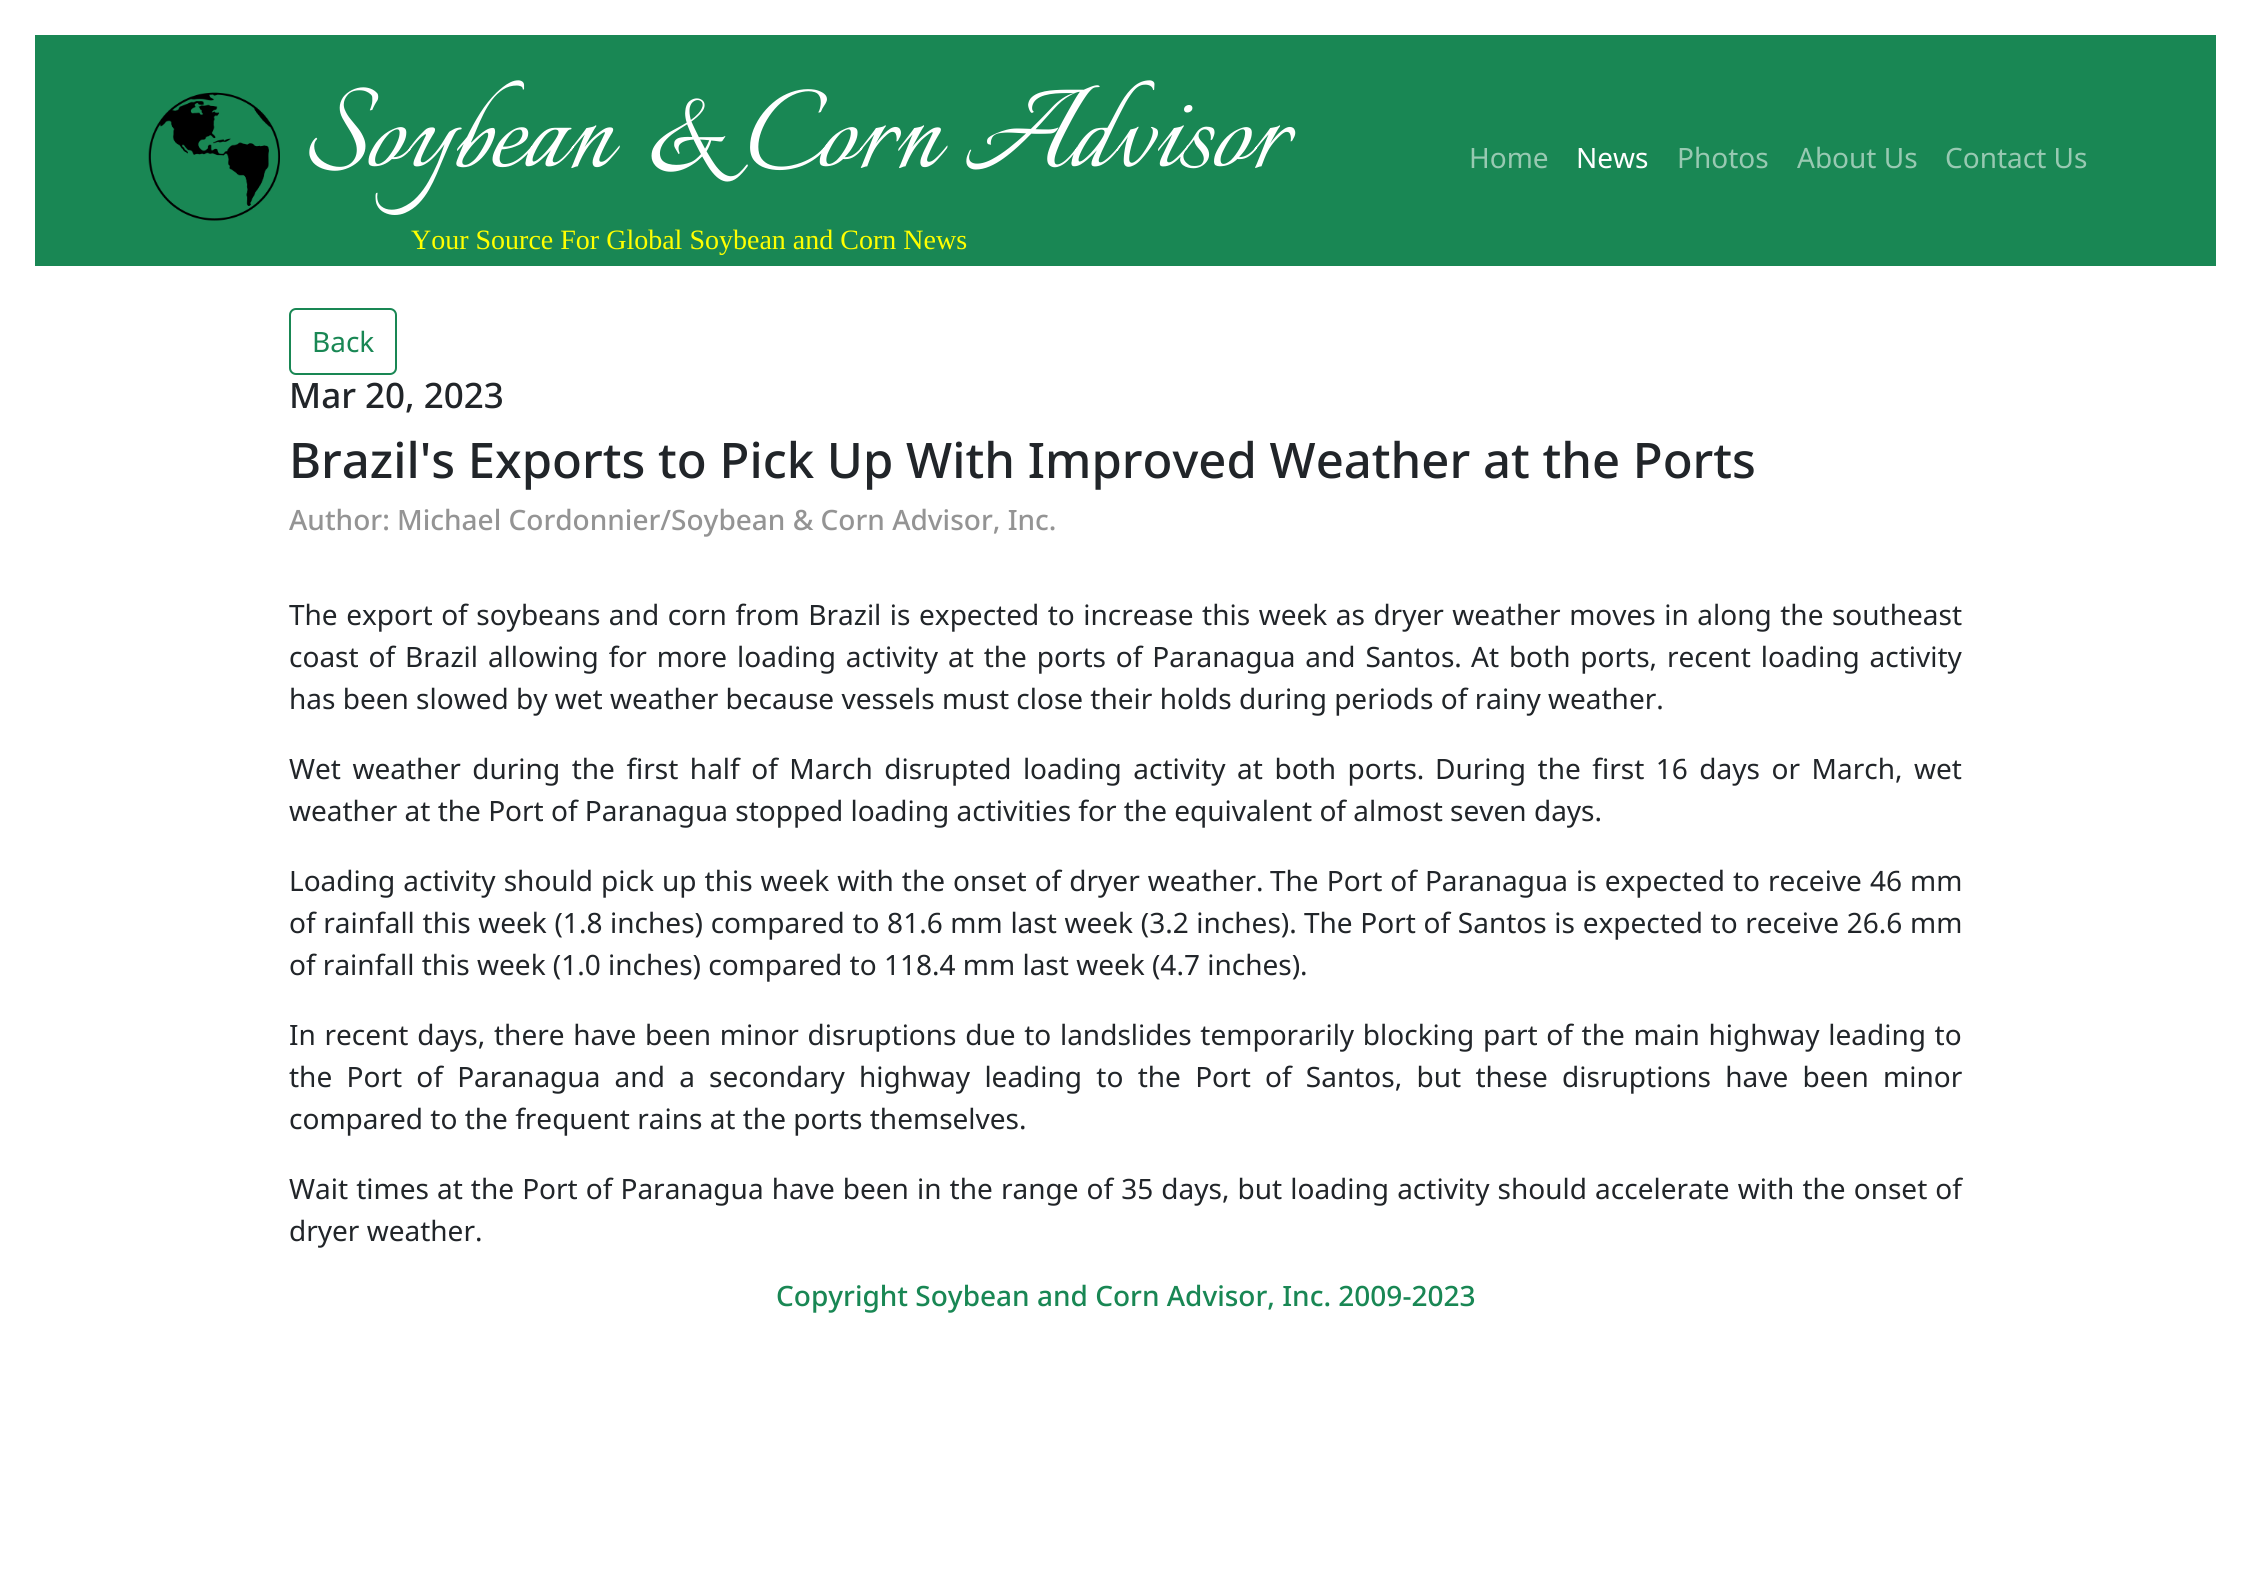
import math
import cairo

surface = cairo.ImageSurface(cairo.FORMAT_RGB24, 2249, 1574)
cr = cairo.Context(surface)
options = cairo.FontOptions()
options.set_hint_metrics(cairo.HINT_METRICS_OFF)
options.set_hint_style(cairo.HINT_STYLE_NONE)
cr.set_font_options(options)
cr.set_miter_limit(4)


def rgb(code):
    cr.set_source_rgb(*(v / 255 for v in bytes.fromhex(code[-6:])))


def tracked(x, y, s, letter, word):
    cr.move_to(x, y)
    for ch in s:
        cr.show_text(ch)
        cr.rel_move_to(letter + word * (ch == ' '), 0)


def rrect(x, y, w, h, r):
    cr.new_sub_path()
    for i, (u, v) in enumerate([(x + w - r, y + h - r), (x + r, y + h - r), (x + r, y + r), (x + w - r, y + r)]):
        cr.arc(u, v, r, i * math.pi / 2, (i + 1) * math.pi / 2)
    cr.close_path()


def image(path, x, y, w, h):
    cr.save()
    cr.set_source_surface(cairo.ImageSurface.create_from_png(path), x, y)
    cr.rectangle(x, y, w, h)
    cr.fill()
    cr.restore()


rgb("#ffffff")
cr.paint()
rgb("#198754")
cr.rectangle(35, 35, 2181, 231)
cr.fill()
image("img/1.png", 148, 92, 132, 129)
rrect(290, 309, 106, 65, 6)
cr.stroke()
cr.select_font_face("Italianno")
cr.set_font_size(140)
rgb("#ffffff")
cr.move_to(304, 166)
cr.show_text("Soybean & Corn Advisor")
cr.select_font_face("Liberation Serif")
cr.set_font_size(28)
rgb("#ffff00")
cr.move_to(411, 249)
cr.show_text("Your Source For Global Soybean and Corn News")
cr.select_font_face("Noto Sans")
rgb("#98c9b2")
cr.move_to(1469, 168)
cr.show_text("Home")
rgb("#ffffff")
cr.move_to(1576, 168)
cr.show_text("News")
rgb("#98c9b2")
for x, y, s in [
    (1677, 168, "Photos"),
    (1797, 168, "About Us"),
    (1945, 168, "Contact Us"),
]:
    cr.move_to(x, y)
    cr.show_text(s)
rgb("#198754")
cr.move_to(312, 352)
cr.show_text("Back")
cr.select_font_face("Noto Sans Medium")
cr.set_font_size(35)
rgb("#212529")
cr.move_to(289, 408)
cr.show_text("Mar 20, 2023")
cr.set_font_size(49)
cr.move_to(289, 478)
cr.show_text("Brazil's Exports to Pick Up With Improved Weather at the Ports")
cr.set_font_size(28)
rgb("#949494")
cr.move_to(289, 530)
cr.show_text("Author: Michael Cordonnier/Soybean & Corn Advisor, Inc.")
cr.select_font_face("Noto Sans")
rgb("#212529")
tracked(289, 625, "The export of soybeans and corn from Brazil is expected to increase this week as dryer weather moves in along the southeast", 0, 1.25)
tracked(289, 667, "coast of Brazil allowing for more loading activity at the ports of Paranagua and Santos.", 0, 2.6)
tracked(1471, 667, "At both ports, recent loading activity", 0, 2.6)
cr.move_to(289, 709)
cr.show_text("has been slowed by wet weather because vessels must close their holds during periods of rainy weather.")
tracked(289, 779, "Wet weather during the first half of March disrupted loading activity at both ports.", 0, 4.25)
tracked(1435, 779, "During the first 16 days or March, wet", 0, 4.25)
cr.move_to(289, 821)
cr.show_text("weather at the Port of Paranagua stopped loading activities for the equivalent of almost seven days.")
tracked(289, 891, "Loading activity should pick up this week with the onset of dryer weather.", 0, 0.75)
tracked(1270, 891, "The Port of Paranagua is expected to receive 46 mm", 0, 0.75)
tracked(289, 933, "of rainfall this week (1.8 inches) compared to 81.6 mm last week (3.2 inches).", 0, 0.4)
tracked(1304, 933, "The Port of Santos is expected to receive 26.6 mm", 0, 0.4)
cr.move_to(289, 975)
cr.show_text("of rainfall this week (1.0 inches) compared to 118.4 mm last week (4.7 inches).")
tracked(289, 1045, "In recent days, there have been minor disruptions due to landslides temporarily blocking part of the main highway leading to", 0, 1.4)
tracked(289, 1087, "the Port of Paranagua and a secondary highway leading to the Port of Santos, but these disruptions have been minor", 0, 7)
cr.move_to(289, 1129)
cr.show_text("compared to the frequent rains at the ports themselves.")
tracked(289, 1199, "Wait times at the Port of Paranagua have been in the range of 35 days, but loading activity should accelerate with the onset of", 0, 0.8)
cr.move_to(289, 1241)
cr.show_text("dryer weather.")
cr.select_font_face("Noto Sans Medium")
rgb("#198754")
cr.move_to(776, 1306)
cr.show_text("Copyright Soybean and Corn Advisor, Inc. 2009-2023")
surface.write_to_png("page.png")
